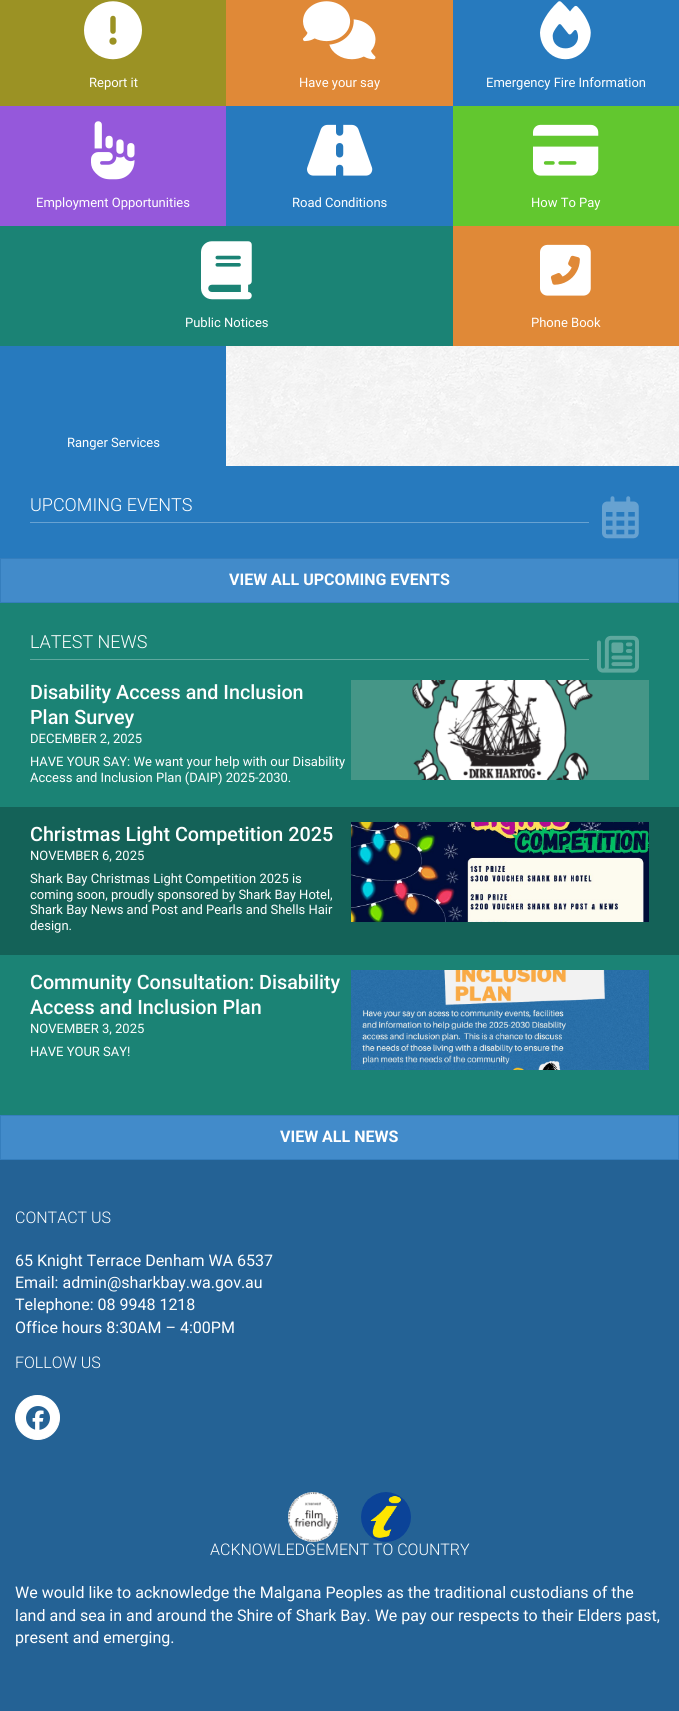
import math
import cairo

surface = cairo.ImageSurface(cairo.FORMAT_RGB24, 679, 1711)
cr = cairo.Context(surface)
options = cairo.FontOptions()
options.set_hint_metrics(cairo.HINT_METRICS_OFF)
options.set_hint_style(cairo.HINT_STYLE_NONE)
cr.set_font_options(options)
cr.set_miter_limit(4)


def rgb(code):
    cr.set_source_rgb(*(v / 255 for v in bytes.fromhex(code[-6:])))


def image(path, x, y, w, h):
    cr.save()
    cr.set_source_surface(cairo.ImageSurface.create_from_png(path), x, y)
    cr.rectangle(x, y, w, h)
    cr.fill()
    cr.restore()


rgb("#ffffff")
cr.paint()
image("img/1.png", 226, 346, 453, 120)
rgb("#9b9224")
cr.rectangle(0, 0, 226, 106)
cr.fill()
image("img/2.png", 84, 1, 58, 59)
rgb("#e08937")
cr.rectangle(226, 0, 227, 106)
cr.fill()
image("img/3.png", 303, 1, 73, 59)
rgb("#277abe")
cr.rectangle(453, 0, 226, 106)
cr.fill()
image("img/4.png", 540, 1, 51, 59)
rgb("#9558db")
cr.rectangle(0, 106, 226, 120)
cr.fill()
image("img/5.png", 91, 121, 44, 59)
rgb("#277abe")
cr.rectangle(226, 106, 227, 120)
cr.fill()
image("img/6.png", 307, 124, 66, 52)
rgb("#62c72f")
cr.rectangle(453, 106, 226, 120)
cr.fill()
image("img/7.png", 533, 124, 66, 52)
rgb("#1b8375")
cr.rectangle(0, 226, 453, 120)
cr.fill()
image("img/8.png", 201, 241, 51, 59)
rgb("#e08937")
cr.rectangle(453, 226, 226, 120)
cr.fill()
image("img/9.png", 540, 244, 51, 52)
for x, y, w, h, color in [
    (0, 346, 226, 120, "#277abe"),
    (0, 466, 679, 92, "#277abe"),
    (30, 522, 559, 1, "#68a2d2"),
]:
    rgb(color)
    cr.rectangle(x, y, w, h)
    cr.fill()
image("img/10.png", 602, 496, 37, 43)
rgb("#428bca")
cr.rectangle(0.5, 558.5, 678, 44)
cr.fill_preserve()
rgb("#357ebd")
cr.set_line_width(1)
cr.stroke()
rgb("#1b8375")
cr.rectangle(0, 603, 679, 512)
cr.fill()
rgb("#5fa89e")
cr.rectangle(30, 659, 559, 1)
cr.fill()
image("img/11.png", 597, 635, 42, 38)
image("img/12.png", 351, 680, 298, 100)
rgb("#146258")
cr.rectangle(0, 807, 679, 148)
cr.fill()
image("img/13.png", 351, 822, 298, 100)
image("img/14.png", 351, 970, 298, 100)
rgb("#428bca")
cr.rectangle(0.5, 1115.5, 678, 44)
cr.fill_preserve()
rgb("#357ebd")
cr.stroke()
rgb("#246295")
cr.rectangle(0, 1160, 679, 551)
cr.fill()
rgb("#ffffff")
cr.arc(37.5, 1417.5, 22, 0, 2 * math.pi)
cr.fill_preserve()
cr.stroke()
image("img/15.png", 26, 1406, 24, 24)
image("img/16.png", 288, 1492, 50, 50)
image("img/17.png", 361, 1492, 50, 50)
cr.select_font_face("Roboto")
cr.set_font_size(13)
for x, y, s in [
    (89, 87, "Report it"),
    (299, 87, "Have your say"),
    (486, 87, "Emergency Fire Information"),
    (36, 207, "Employment Opportunities"),
    (292, 207, "Road Conditions"),
    (531, 207, "How To Pay"),
    (185, 327, "Public Notices"),
    (531, 327, "Phone Book"),
    (67, 447, "Ranger Services"),
]:
    cr.move_to(x, y)
    cr.show_text(s)
cr.select_font_face("Roboto Light")
cr.set_font_size(18)
cr.move_to(30, 511)
cr.show_text("UPCOMING EVENTS")
cr.select_font_face("Roboto", cairo.FONT_SLANT_NORMAL, cairo.FONT_WEIGHT_BOLD)
cr.set_font_size(16)
cr.move_to(229, 585)
cr.show_text("VIEW ALL UPCOMING EVENTS")
cr.select_font_face("Roboto Light")
cr.set_font_size(18)
cr.move_to(30, 648)
cr.show_text("LATEST NEWS")
cr.select_font_face("Roboto Medium")
cr.set_font_size(19.75)
cr.move_to(30, 699)
cr.show_text("Disability Access and Inclusion")
cr.move_to(30, 724)
cr.show_text("Plan Survey")
cr.select_font_face("Roboto")
cr.set_font_size(13)
for x, y, s in [
    (30, 743, "DECEMBER 2, 2025"),
    (30, 766, "HAVE YOUR SAY: We want your help with our Disability"),
    (30, 782, "Access and Inclusion Plan (DAIP) 2025-2030."),
]:
    cr.move_to(x, y)
    cr.show_text(s)
cr.select_font_face("Roboto Medium")
cr.set_font_size(19.75)
cr.move_to(30, 841)
cr.show_text("Christmas Light Competition 2025")
cr.select_font_face("Roboto")
cr.set_font_size(13)
for x, y, s in [
    (30, 860, "NOVEMBER 6, 2025"),
    (30, 883, "Shark Bay Christmas Light Competition 2025 is"),
    (30, 899, "coming soon, proudly sponsored by Shark Bay Hotel,"),
    (30, 914, "Shark Bay News and Post and Pearls and Shells Hair"),
    (30, 930, "design."),
]:
    cr.move_to(x, y)
    cr.show_text(s)
cr.select_font_face("Roboto Medium")
cr.set_font_size(19.75)
cr.move_to(30, 989)
cr.show_text("Community Consultation: Disability")
cr.move_to(30, 1014)
cr.show_text("Access and Inclusion Plan")
cr.select_font_face("Roboto")
cr.set_font_size(13)
cr.move_to(30, 1033)
cr.show_text("NOVEMBER 3, 2025")
cr.move_to(30, 1056)
cr.show_text("HAVE YOUR SAY!")
cr.select_font_face("Roboto", cairo.FONT_SLANT_NORMAL, cairo.FONT_WEIGHT_BOLD)
cr.set_font_size(16)
cr.move_to(280, 1142)
cr.show_text("VIEW ALL NEWS")
cr.select_font_face("Roboto Light")
cr.move_to(15, 1223)
cr.show_text("CONTACT US")
cr.select_font_face("Roboto")
for x, y, s in [
    (15, 1266, "65 Knight Terrace Denham WA 6537"),
    (15, 1288, "Email: admin@sharkbay.wa.gov.au"),
    (15, 1310, "Telephone: 08 9948 1218"),
    (15, 1333, "Office hours 8:30AM – 4:00PM"),
]:
    cr.move_to(x, y)
    cr.show_text(s)
cr.select_font_face("Roboto Light")
cr.move_to(15, 1368)
cr.show_text("FOLLOW US")
cr.move_to(210, 1555)
cr.show_text("ACKNOWLEDGEMENT TO COUNTRY")
cr.select_font_face("Roboto")
for x, y, s in [
    (15, 1598, "We would like to acknowledge the Malgana Peoples as the traditional custodians of the"),
    (15, 1621, "land and sea in and around the Shire of Shark Bay. We pay our respects to their Elders past,"),
    (15, 1643, "present and emerging."),
]:
    cr.move_to(x, y)
    cr.show_text(s)
surface.write_to_png("page.png")
